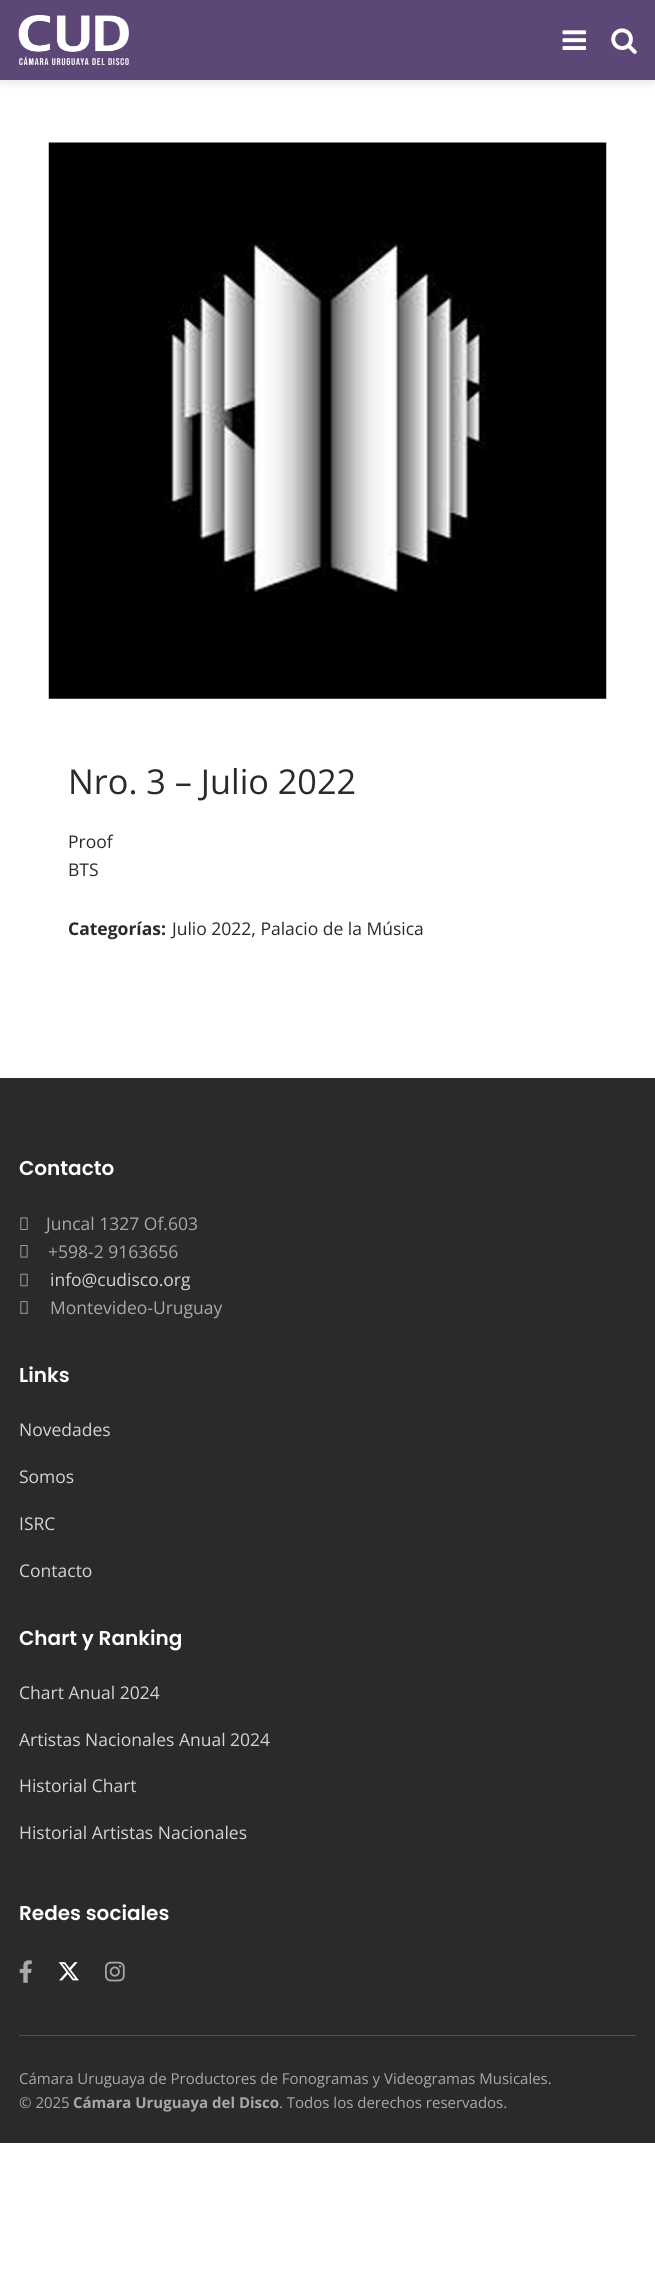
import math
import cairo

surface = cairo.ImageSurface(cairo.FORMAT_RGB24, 655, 2293)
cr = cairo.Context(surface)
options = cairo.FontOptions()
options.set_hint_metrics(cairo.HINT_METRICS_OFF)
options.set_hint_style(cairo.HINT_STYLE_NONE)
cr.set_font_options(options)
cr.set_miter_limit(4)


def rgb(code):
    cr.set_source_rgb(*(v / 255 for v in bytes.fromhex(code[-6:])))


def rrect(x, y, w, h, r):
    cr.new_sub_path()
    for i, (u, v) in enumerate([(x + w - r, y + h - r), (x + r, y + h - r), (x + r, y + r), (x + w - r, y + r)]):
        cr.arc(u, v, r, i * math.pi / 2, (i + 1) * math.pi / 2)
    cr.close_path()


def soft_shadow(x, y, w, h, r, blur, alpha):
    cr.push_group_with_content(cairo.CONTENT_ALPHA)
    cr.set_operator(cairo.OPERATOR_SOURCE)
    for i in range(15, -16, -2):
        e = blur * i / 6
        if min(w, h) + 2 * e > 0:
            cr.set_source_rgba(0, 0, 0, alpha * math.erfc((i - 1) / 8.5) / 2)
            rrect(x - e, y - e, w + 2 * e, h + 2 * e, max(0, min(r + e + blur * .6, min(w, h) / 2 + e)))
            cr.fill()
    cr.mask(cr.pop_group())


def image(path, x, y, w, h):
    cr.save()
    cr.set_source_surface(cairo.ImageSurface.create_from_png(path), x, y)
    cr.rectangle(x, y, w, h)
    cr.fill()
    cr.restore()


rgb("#ffffff")
cr.paint()
rgb("#000000")
soft_shadow(0, 3, 655, 80, 0, 4, 0.1)
rgb("#5d4777")
cr.rectangle(0, 0, 655, 80)
cr.fill()
image("img/1.png", 18, 15, 111, 50)
image("img/2.png", 562, 30, 25, 20)
image("img/3.png", 611, 28, 26, 26)
image("img/4.png", 48, 142, 559, 557)
rgb("#2c2a29")
cr.rectangle(0, 1078, 655, 1065)
cr.fill()
image("img/5.png", 20, 1217, 8, 13)
image("img/6.png", 20, 1245, 8, 13)
image("img/7.png", 20, 1273, 8, 14)
image("img/8.png", 20, 1301, 8, 13)
image("img/9.png", 19, 1960, 13, 23)
image("img/10.png", 58, 1962, 21, 19)
image("img/11.png", 105, 1961, 20, 21)
rgb("#505051")
cr.rectangle(19, 2035, 617, 1)
cr.fill()
cr.select_font_face("Open Sans")
cr.set_font_size(34.25)
rgb("#2c2a29")
cr.move_to(68, 794)
cr.show_text("Nro. 3 – Julio 2022")
cr.set_font_size(17.5)
cr.move_to(68, 848)
cr.show_text("Proof")
cr.move_to(68, 876)
cr.show_text("BTS")
cr.select_font_face("Open Sans", cairo.FONT_SLANT_NORMAL, cairo.FONT_WEIGHT_BOLD)
cr.move_to(68, 935)
cr.show_text("Categorías:")
cr.select_font_face("Open Sans")
cr.move_to(172, 935)
cr.show_text("Julio 2022, Palacio de la Música")
cr.select_font_face("Poppins SemiBold")
cr.set_font_size(20)
rgb("#ffffff")
cr.move_to(19, 1175)
cr.show_text("Contacto")
cr.select_font_face("Open Sans")
cr.set_font_size(17.5)
rgb("#a8a8aa")
cr.move_to(46, 1230)
cr.show_text("Juncal 1327 Of.603")
cr.move_to(48, 1258)
cr.show_text("+598-2 9163656")
rgb("#d5d4d4")
cr.move_to(50, 1286)
cr.show_text("info@cudisco.org")
rgb("#a8a8aa")
cr.move_to(50, 1314)
cr.show_text("Montevideo-Uruguay")
cr.select_font_face("Poppins SemiBold")
cr.set_font_size(20)
rgb("#ffffff")
cr.move_to(19, 1382)
cr.show_text("Links")
cr.select_font_face("Open Sans")
cr.set_font_size(17.5)
rgb("#d5d4d4")
for x, y, s in [
    (19, 1436, "Novedades"),
    (19, 1483, "Somos"),
    (19, 1530, "ISRC"),
    (19, 1577, "Contacto"),
]:
    cr.move_to(x, y)
    cr.show_text(s)
cr.select_font_face("Poppins SemiBold")
cr.set_font_size(20)
rgb("#ffffff")
cr.move_to(19, 1645)
cr.show_text("Chart y Ranking")
cr.select_font_face("Open Sans")
cr.set_font_size(17.5)
rgb("#d5d4d4")
for x, y, s in [
    (19, 1699, "Chart Anual 2024"),
    (19, 1746, "Artistas Nacionales Anual 2024"),
    (19, 1792, "Historial Chart"),
    (19, 1839, "Historial Artistas Nacionales"),
]:
    cr.move_to(x, y)
    cr.show_text(s)
cr.select_font_face("Poppins SemiBold")
cr.set_font_size(20)
rgb("#ffffff")
cr.move_to(19, 1920)
cr.show_text("Redes sociales")
cr.select_font_face("Open Sans")
cr.set_font_size(15)
rgb("#a8a8aa")
cr.move_to(19, 2084)
cr.show_text("Cámara Uruguaya de Productores de Fonogramas y Videogramas Musicales.")
cr.move_to(19, 2108)
cr.show_text("© 2025")
cr.select_font_face("Open Sans", cairo.FONT_SLANT_NORMAL, cairo.FONT_WEIGHT_BOLD)
cr.move_to(73, 2108)
cr.show_text("Cámara Uruguaya del Disco")
cr.select_font_face("Open Sans")
cr.move_to(279, 2108)
cr.show_text(". Todos los derechos reservados.")
surface.write_to_png("page.png")
